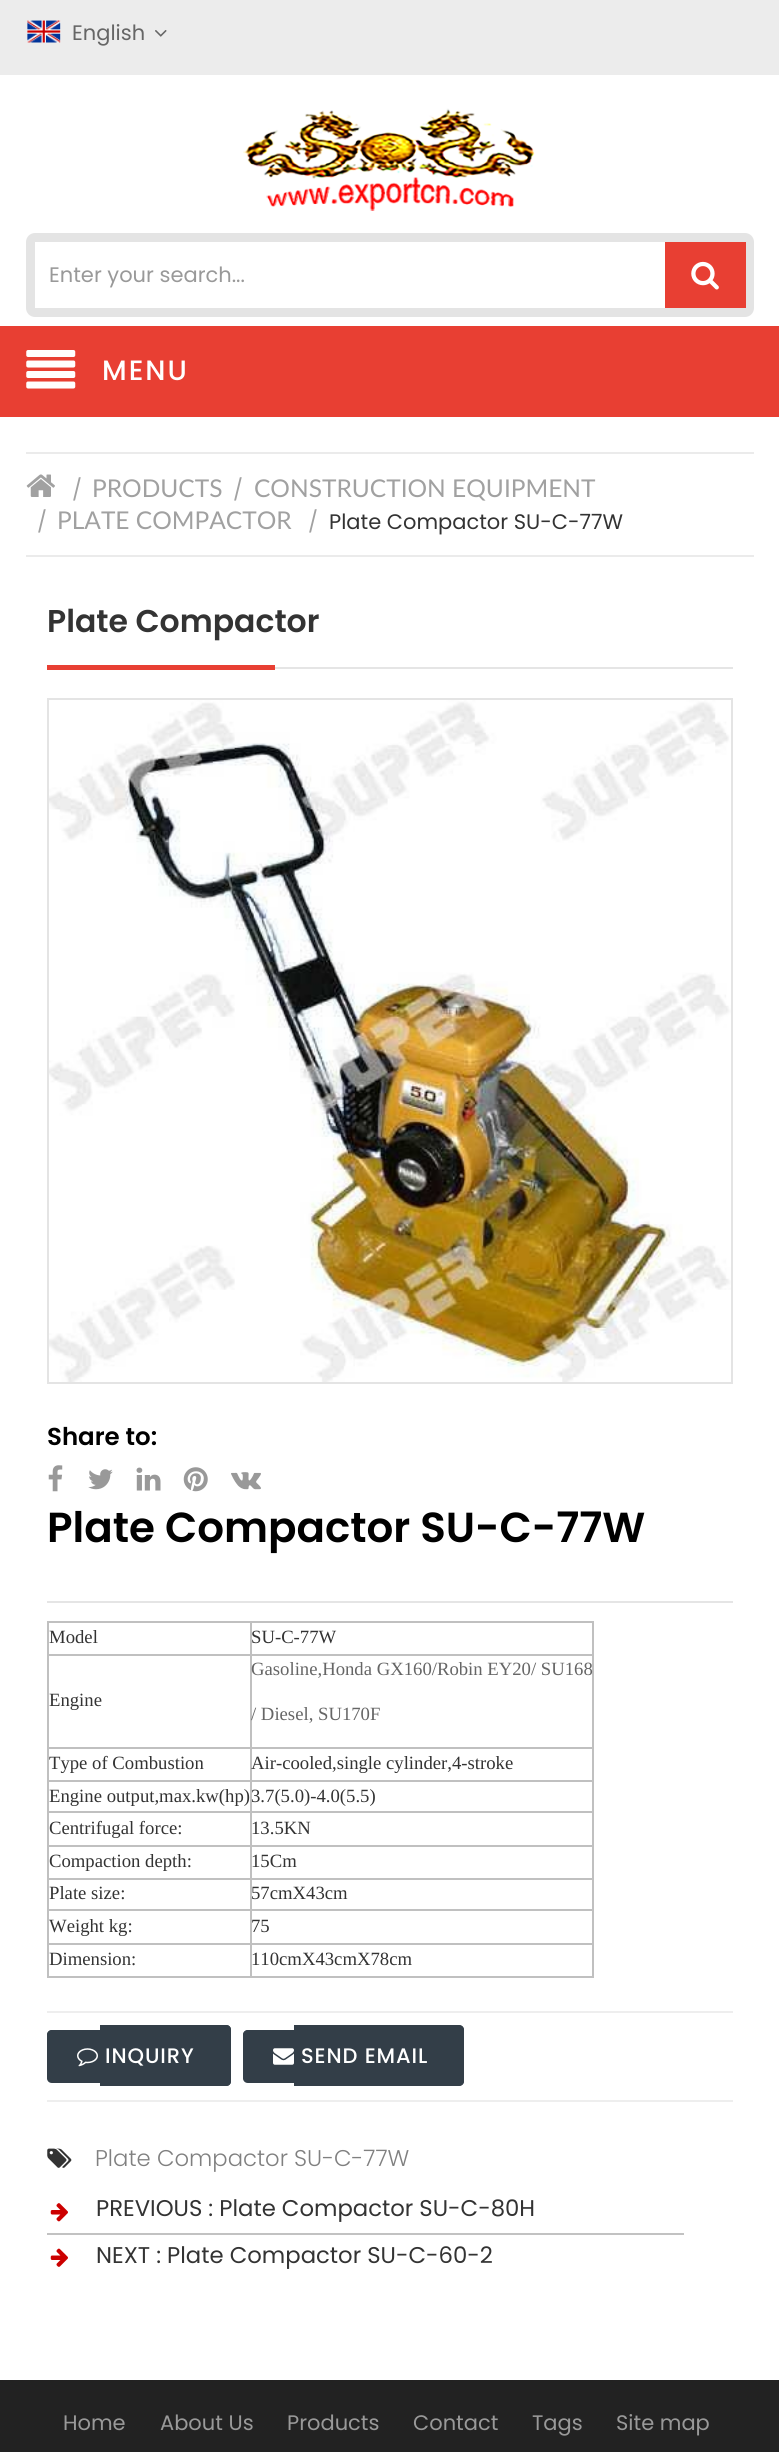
import math
import cairo

surface = cairo.ImageSurface(cairo.FORMAT_RGB24, 779, 2452)
cr = cairo.Context(surface)
options = cairo.FontOptions()
options.set_hint_metrics(cairo.HINT_METRICS_OFF)
options.set_hint_style(cairo.HINT_STYLE_NONE)
cr.set_font_options(options)
cr.set_miter_limit(4)


def rgb(code):
    cr.set_source_rgb(*(v / 255 for v in bytes.fromhex(code[-6:])))


def tracked(x, y, s, letter, word):
    cr.move_to(x, y)
    for ch in s:
        cr.show_text(ch)
        cr.rel_move_to(letter + word * (ch == ' '), 0)


def rrect(x, y, w, h, r):
    cr.new_sub_path()
    for i, (u, v) in enumerate([(x + w - r, y + h - r), (x + r, y + h - r), (x + r, y + r), (x + w - r, y + r)]):
        cr.arc(u, v, r, i * math.pi / 2, (i + 1) * math.pi / 2)
    cr.close_path()


def image(path, x, y, w, h):
    cr.save()
    cr.set_source_surface(cairo.ImageSurface.create_from_png(path), x, y)
    cr.rectangle(x, y, w, h)
    cr.fill()
    cr.restore()


rgb("#ffffff")
cr.paint()
rgb("#ececec")
cr.rectangle(0, 0, 779, 75)
cr.fill()
image("img/1.png", 27, 20, 34, 23)
image("img/2.png", 155, 30, 12, 7)
image("img/3.png", 243, 108, 292, 103)
rrect(30.5, 237.5, 719, 75, 4.5)
rgb("#e4e4e4")
cr.set_line_width(9)
cr.stroke()
rgb("#e83f33")
cr.rectangle(665, 242, 81, 66)
cr.fill()
image("img/4.png", 691, 261, 28, 29)
cr.rectangle(0, 326, 779, 91)
cr.fill()
image("img/5.png", 26, 350, 50, 39)
rgb("#ebebeb")
cr.rectangle(26, 452, 728, 2)
cr.fill()
cr.rectangle(26, 555, 728, 2)
cr.fill()
image("img/6.png", 26, 474, 29, 23)
rgb("#e5e5e5")
cr.rectangle(275, 667, 458, 2)
cr.fill()
rgb("#e83f33")
cr.rectangle(47, 665, 228, 5)
cr.fill()
image("img/7.png", 49, 700, 682, 682)
cr.rectangle(48, 699, 684, 684)
rgb("#e4e4e4")
cr.set_line_width(2)
cr.stroke()
image("img/8.png", 48, 1465, 15, 27)
image("img/9.png", 88, 1469, 25, 21)
image("img/10.png", 136, 1467, 25, 24)
image("img/11.png", 183, 1467, 25, 25)
image("img/12.png", 231, 1472, 30, 18)
for x, y, w, h, color in [
    (47, 1601, 686, 2, "#e5e5e5"),
    (250, 1621, 343, 2, "#c0c0c0"),
    (250, 1654, 343, 2, "#c0c0c0"),
    (250, 1747, 343, 2, "#c0c0c0"),
    (250, 1780, 343, 2, "#c0c0c0"),
    (250, 1811, 343, 2, "#c0c0c0"),
    (250, 1845, 343, 2, "#c0c0c0"),
    (250, 1878, 343, 2, "#c0c0c0"),
    (250, 1909, 343, 2, "#c0c0c0"),
    (250, 1943, 343, 2, "#c0c0c0"),
    (592, 1943, 2, 35, "#c0c0c0"),
    (250, 1976, 343, 2, "#c0c0c0"),
    (250, 1943, 2, 35, "#c0c0c0"),
    (47, 1943, 205, 2, "#c0c0c0"),
    (250, 1909, 2, 35, "#c0c0c0"),
    (47, 1909, 205, 2, "#c0c0c0"),
    (250, 1878, 2, 33, "#c0c0c0"),
    (47, 1878, 205, 2, "#c0c0c0"),
    (250, 1845, 2, 35, "#c0c0c0"),
    (47, 1845, 205, 2, "#c0c0c0"),
    (250, 1811, 2, 35, "#c0c0c0"),
    (47, 1811, 205, 2, "#c0c0c0"),
    (250, 1780, 2, 33, "#c0c0c0"),
    (47, 1780, 205, 2, "#c0c0c0"),
    (250, 1747, 2, 35, "#c0c0c0"),
    (47, 1747, 205, 2, "#c0c0c0"),
    (250, 1654, 2, 94, "#c0c0c0"),
    (47, 1654, 205, 2, "#c0c0c0"),
    (250, 1621, 2, 35, "#c0c0c0"),
    (47, 1621, 205, 2, "#c0c0c0"),
    (47, 1976, 205, 2, "#c0c0c0"),
    (47, 1943, 2, 35, "#c0c0c0"),
    (47, 1909, 2, 35, "#c0c0c0"),
    (47, 1878, 2, 33, "#c0c0c0"),
    (47, 1845, 2, 35, "#c0c0c0"),
    (47, 1811, 2, 35, "#c0c0c0"),
    (47, 1780, 2, 33, "#c0c0c0"),
    (47, 1747, 2, 35, "#c0c0c0"),
    (47, 1654, 2, 94, "#c0c0c0"),
    (47, 1621, 2, 35, "#c0c0c0"),
    (592, 1909, 2, 35, "#c0c0c0"),
    (592, 1878, 2, 33, "#c0c0c0"),
    (592, 1845, 2, 35, "#c0c0c0"),
    (592, 1811, 2, 35, "#c0c0c0"),
    (592, 1780, 2, 33, "#c0c0c0"),
    (592, 1747, 2, 35, "#c0c0c0"),
    (592, 1654, 2, 94, "#c0c0c0"),
    (592, 1621, 2, 35, "#c0c0c0"),
    (47, 2011, 686, 2, "#eeeeee"),
    (47, 2100, 686, 2, "#eeeeee"),
]:
    rgb(color)
    cr.rectangle(x, y, w, h)
    cr.fill()
rgb("#333e48")
cr.new_path()
cr.move_to(52, 2030)
cr.line_to(100, 2030)
cr.line_to(100, 2083)
cr.line_to(52, 2083)
cr.curve_to(49, 2083, 47, 2081, 47, 2078)
cr.line_to(47, 2035)
cr.curve_to(47, 2032, 49, 2030, 52, 2030)
cr.close_path()
cr.fill()
cr.set_fill_rule(cairo.FILL_RULE_EVEN_ODD)
cr.new_path()
cr.move_to(52, 2030)
cr.line_to(100, 2030)
cr.line_to(100, 2082)
cr.line_to(52, 2082)
cr.curve_to(50, 2082, 47, 2080, 47, 2077)
cr.line_to(47, 2035)
cr.curve_to(47, 2032, 50, 2030, 52, 2030)
cr.close_path()
cr.move_to(52, 2032)
cr.line_to(100, 2032)
cr.line_to(100, 2081)
cr.line_to(52, 2081)
cr.curve_to(51, 2081, 49, 2079, 49, 2077)
cr.line_to(49, 2035)
cr.curve_to(49, 2033, 51, 2032, 52, 2032)
cr.close_path()
cr.fill()
cr.new_path()
cr.move_to(100, 2025)
cr.line_to(226, 2025)
cr.curve_to(229, 2025, 231, 2027, 231, 2030)
cr.line_to(231, 2081)
cr.curve_to(231, 2084, 229, 2086, 226, 2086)
cr.line_to(100, 2086)
cr.close_path()
cr.fill()
cr.new_path()
cr.move_to(100, 2025)
cr.line_to(226, 2025)
cr.curve_to(229, 2025, 231, 2027, 231, 2030)
cr.line_to(231, 2081)
cr.curve_to(231, 2084, 229, 2086, 226, 2086)
cr.line_to(100, 2086)
cr.close_path()
cr.move_to(100, 2026)
cr.line_to(226, 2026)
cr.curve_to(228, 2026, 229, 2028, 229, 2030)
cr.line_to(229, 2081)
cr.curve_to(229, 2083, 228, 2084, 226, 2084)
cr.line_to(100, 2084)
cr.close_path()
cr.fill()
image("img/13.png", 77, 2048, 21, 19)
cr.new_path()
cr.move_to(248, 2030)
cr.line_to(294, 2030)
cr.line_to(294, 2083)
cr.line_to(248, 2083)
cr.curve_to(245, 2083, 243, 2081, 243, 2078)
cr.line_to(243, 2035)
cr.curve_to(243, 2032, 245, 2030, 248, 2030)
cr.close_path()
cr.fill()
cr.new_path()
cr.move_to(248, 2030)
cr.line_to(294, 2030)
cr.line_to(294, 2082)
cr.line_to(248, 2082)
cr.curve_to(246, 2082, 243, 2080, 243, 2077)
cr.line_to(243, 2035)
cr.curve_to(243, 2032, 246, 2030, 248, 2030)
cr.close_path()
cr.move_to(248, 2032)
cr.line_to(294, 2032)
cr.line_to(294, 2081)
cr.line_to(248, 2081)
cr.curve_to(247, 2081, 245, 2079, 245, 2077)
cr.line_to(245, 2035)
cr.curve_to(245, 2033, 247, 2032, 248, 2032)
cr.close_path()
cr.fill()
cr.new_path()
cr.move_to(294, 2025)
cr.line_to(459, 2025)
cr.curve_to(462, 2025, 464, 2027, 464, 2030)
cr.line_to(464, 2081)
cr.curve_to(464, 2084, 462, 2086, 459, 2086)
cr.line_to(294, 2086)
cr.close_path()
cr.fill()
cr.new_path()
cr.move_to(294, 2025)
cr.line_to(458, 2025)
cr.curve_to(461, 2025, 464, 2027, 464, 2030)
cr.line_to(464, 2081)
cr.curve_to(464, 2084, 461, 2086, 458, 2086)
cr.line_to(294, 2086)
cr.close_path()
cr.move_to(294, 2026)
cr.line_to(458, 2026)
cr.curve_to(460, 2026, 462, 2028, 462, 2030)
cr.line_to(462, 2081)
cr.curve_to(462, 2083, 460, 2084, 458, 2084)
cr.line_to(294, 2084)
cr.close_path()
cr.fill()
image("img/14.png", 273, 2048, 21, 17)
image("img/15.png", 47, 2148, 25, 20)
rgb("#c2c2c2")
cr.rectangle(47, 2233, 637, 2)
cr.fill()
image("img/16.png", 50, 2203, 18, 19)
image("img/17.png", 50, 2248, 18, 19)
rgb("#222222")
cr.rectangle(0, 2380, 779, 72)
cr.fill()
cr.select_font_face("Poppins")
cr.set_font_size(21)
rgb("#666666")
cr.move_to(72, 40)
cr.show_text("English")
rgb("#999999")
cr.move_to(49, 282)
cr.show_text("Enter your search...")
cr.select_font_face("Poppins Medium")
cr.set_font_size(28)
rgb("#ffffff")
tracked(102, 380, "MENU", 2, 0)
cr.select_font_face("Poppins")
cr.set_font_size(21)
rgb("#a1a1a1")
cr.move_to(72, 497)
cr.show_text("/")
cr.select_font_face("Lato")
cr.set_font_size(24.5)
cr.move_to(92, 497)
cr.show_text("PRODUCTS")
cr.select_font_face("Poppins")
cr.set_font_size(21)
cr.move_to(233, 497)
cr.show_text("/")
cr.select_font_face("Lato")
cr.set_font_size(24.5)
cr.move_to(254, 497)
cr.show_text("CONSTRUCTION EQUIPMENT")
cr.select_font_face("Poppins")
cr.set_font_size(21)
cr.move_to(37, 529)
cr.show_text("/")
cr.select_font_face("Lato")
cr.set_font_size(24.5)
cr.move_to(57, 529)
cr.show_text("PLATE COMPACTOR")
cr.select_font_face("Poppins")
cr.set_font_size(21)
cr.move_to(308, 529)
cr.show_text("/")
rgb("#333333")
cr.move_to(329, 529)
cr.show_text("Plate Compactor SU-C-77W")
cr.select_font_face("Poppins SemiBold")
cr.set_font_size(31.5)
cr.move_to(47, 632)
cr.show_text("Plate Compactor")
cr.set_font_size(24.5)
rgb("#000000")
cr.move_to(47, 1445)
cr.show_text("Share to:")
cr.set_font_size(42)
cr.move_to(47, 1542)
cr.show_text("Plate Compactor SU-C-77W")
cr.select_font_face("Liberation Serif")
cr.set_font_size(18.7)
rgb("#333333")
for x, y, s in [
    (49, 1643, "Model"),
    (251, 1643, "SU-C-77W"),
    (49, 1706, "Engine"),
]:
    cr.move_to(x, y)
    cr.show_text(s)
rgb("#666666")
cr.move_to(251, 1675)
cr.show_text("Gasoline,Honda GX160/Robin EY20/ SU168")
cr.move_to(251, 1720)
cr.show_text("/ Diesel, SU170F")
rgb("#333333")
for x, y, s in [
    (49, 1769, "Type of Combustion"),
    (251, 1769, "Air-cooled,single cylinder,4-stroke"),
    (49, 1802, "Engine output,max.kw(hp)"),
    (251, 1802, "3.7(5.0)-4.0(5.5)"),
    (49, 1834, "Centrifugal force:"),
    (251, 1834, "13.5KN"),
    (49, 1867, "Compaction depth:"),
    (251, 1867, "15Cm"),
    (49, 1899, "Plate size:"),
    (251, 1899, "57cmX43cm"),
    (49, 1932, "Weight kg:"),
    (251, 1932, "75"),
    (49, 1965, "Dimension:"),
    (251, 1965, "110cmX43cmX78cm"),
]:
    cr.move_to(x, y)
    cr.show_text(s)
cr.select_font_face("Poppins Medium")
cr.set_font_size(21)
rgb("#ffffff")
tracked(105, 2063, "INQUIRY", 0.9, 0)
tracked(301, 2063, "SEND EMAIL", 0.9, 0)
cr.select_font_face("Poppins Light")
cr.set_font_size(22.75)
rgb("#808080")
cr.move_to(95, 2166)
cr.show_text("Plate Compactor SU-C-77W")
cr.select_font_face("Poppins")
rgb("#333333")
cr.move_to(96, 2216)
cr.show_text("PREVIOUS : Plate Compactor SU-C-80H")
cr.move_to(96, 2263)
cr.show_text("NEXT : Plate Compactor SU-C-60-2")
cr.set_font_size(21)
rgb("#999999")
for x, y, s in [
    (63, 2430, "Home"),
    (160, 2430, "About Us"),
    (287, 2430, "Products"),
    (413, 2430, "Contact"),
    (532, 2430, "Tags"),
    (616, 2430, "Site map"),
]:
    cr.move_to(x, y)
    cr.show_text(s)
surface.write_to_png("page.png")
